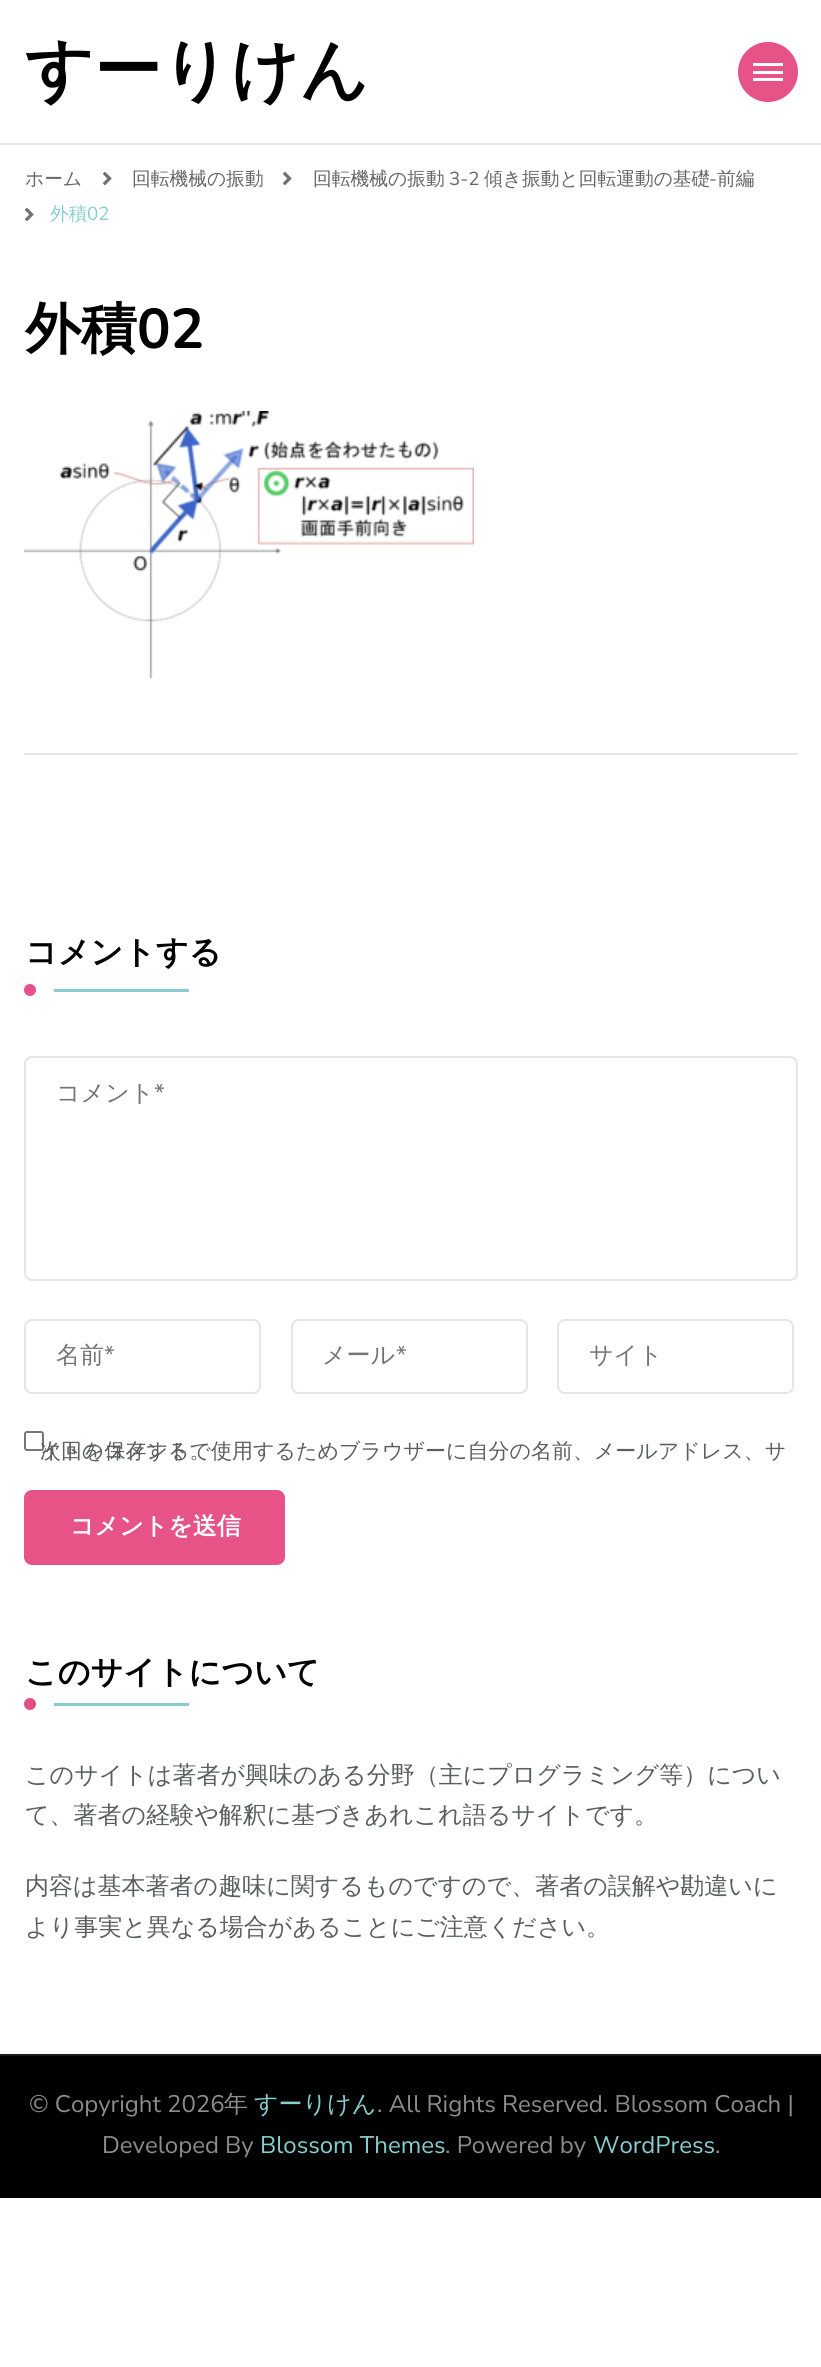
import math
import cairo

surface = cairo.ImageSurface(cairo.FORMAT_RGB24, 821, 2367)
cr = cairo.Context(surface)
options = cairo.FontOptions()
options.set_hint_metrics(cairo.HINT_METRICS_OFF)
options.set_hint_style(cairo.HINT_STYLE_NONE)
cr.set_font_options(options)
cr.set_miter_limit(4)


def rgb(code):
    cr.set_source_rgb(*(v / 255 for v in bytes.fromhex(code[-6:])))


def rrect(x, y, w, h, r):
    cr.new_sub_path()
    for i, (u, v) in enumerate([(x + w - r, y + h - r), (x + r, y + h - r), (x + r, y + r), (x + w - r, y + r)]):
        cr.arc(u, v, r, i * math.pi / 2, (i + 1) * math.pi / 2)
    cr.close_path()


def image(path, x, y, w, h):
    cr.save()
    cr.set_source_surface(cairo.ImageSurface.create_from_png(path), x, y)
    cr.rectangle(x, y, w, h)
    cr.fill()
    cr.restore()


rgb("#ffffff")
cr.paint()
rgb("#e5e5e5")
cr.rectangle(0, 143, 821, 2)
cr.fill()
rgb("#e75387")
cr.arc(768, 72, 30, 0, 2 * math.pi)
cr.fill()
for x, y, w, h, color in [
    (753, 63, 30, 3, "#ffffff"),
    (753, 71, 30, 3, "#ffffff"),
    (753, 78, 30, 3, "#ffffff"),
]:
    rgb(color)
    cr.rectangle(x, y, w, h)
    cr.fill()
image("img/1.png", 103, 172, 9, 13)
image("img/1.png", 283, 172, 9, 13)
image("img/1.png", 25, 208, 9, 13)
image("img/2.png", 24, 411, 450, 267)
rgb("#e5e5e5")
cr.rectangle(24, 753, 774, 2)
cr.fill()
rgb("#e8508d")
cr.arc(30, 990, 6, 0, 2 * math.pi)
cr.fill()
rgb("#88ced0")
cr.rectangle(54, 989, 135, 3)
cr.fill()
rrect(25, 1057, 772, 223, 7)
rgb("#e5e5e5")
cr.stroke()
rrect(25, 1320, 235, 73, 7)
cr.stroke()
rrect(292, 1320, 235, 73, 7)
cr.stroke()
rrect(558, 1320, 235, 73, 7)
cr.stroke()
rrect(25, 1432, 18, 18, 2)
rgb("#767676")
cr.stroke()
rgb("#e75387")
rrect(24, 1490, 261, 75, 8)
cr.fill()
rgb("#e24e82")
cr.arc(30, 1704, 6, 0, 2 * math.pi)
cr.fill()
for x, y, w, h, color in [
    (54, 1703, 135, 3, "#88ced0"),
    (0, 2056, 821, 142, "#000000"),
    (0, 2054, 821, 2, "#1a1a1a"),
]:
    rgb(color)
    cr.rectangle(x, y, w, h)
    cr.fill()
cr.select_font_face("WenQuanYi Zen Hei", cairo.FONT_SLANT_NORMAL, cairo.FONT_WEIGHT_BOLD)
cr.set_font_size(67.5)
rgb("#000000")
cr.move_to(25, 93)
cr.show_text("すーりけん")
cr.select_font_face("WenQuanYi Zen Hei Medium")
cr.set_font_size(18.75)
rgb("#666666")
for x, y, s in [
    (25, 185, "ホーム"),
    (132, 185, "回転機械の振動"),
    (313, 185, "回転機械の振動"),
]:
    cr.move_to(x, y)
    cr.show_text(s)
cr.select_font_face("Nunito Sans")
cr.move_to(449, 185)
cr.show_text("3-2")
cr.select_font_face("WenQuanYi Zen Hei Medium")
cr.move_to(484, 185)
cr.show_text("傾き振動と回転運動の基礎")
cr.select_font_face("Nunito Sans")
cr.move_to(709, 185)
cr.show_text("-")
cr.select_font_face("WenQuanYi Zen Hei Medium")
cr.move_to(717, 185)
cr.show_text("前編")
rgb("#88ced0")
cr.move_to(50, 220)
cr.show_text("外積")
cr.select_font_face("Nunito Sans")
cr.move_to(87, 220)
cr.show_text("02")
cr.select_font_face("WenQuanYi Zen Hei", cairo.FONT_SLANT_NORMAL, cairo.FONT_WEIGHT_BOLD)
cr.set_font_size(56)
rgb("#000000")
cr.move_to(25, 348)
cr.show_text("外積")
cr.select_font_face("Nunito", cairo.FONT_SLANT_NORMAL, cairo.FONT_WEIGHT_BOLD)
cr.move_to(137, 348)
cr.show_text("02")
cr.select_font_face("WenQuanYi Zen Hei", cairo.FONT_SLANT_NORMAL, cairo.FONT_WEIGHT_BOLD)
cr.set_font_size(32)
cr.move_to(25, 963)
cr.show_text("コメントする")
cr.select_font_face("WenQuanYi Zen Hei Medium")
cr.set_font_size(24)
rgb("#757575")
cr.move_to(56, 1101)
cr.show_text("コメント")
cr.select_font_face("Nunito Sans")
cr.move_to(154, 1101)
cr.show_text("*")
cr.select_font_face("WenQuanYi Zen Hei Medium")
cr.move_to(56, 1363)
cr.show_text("名前")
cr.select_font_face("Nunito Sans")
cr.move_to(104, 1363)
cr.show_text("*")
cr.select_font_face("WenQuanYi Zen Hei Medium")
cr.move_to(322, 1363)
cr.show_text("メール")
cr.select_font_face("Nunito Sans")
cr.move_to(396, 1363)
cr.show_text("*")
cr.select_font_face("WenQuanYi Zen Hei Medium")
cr.move_to(589, 1363)
cr.show_text("サイト")
cr.set_font_size(21)
rgb("#595f5f")
cr.move_to(40, 1458)
cr.show_text("次回のコメントで使用するためブラウザーに自分の名前、メールアドレス、サ")
cr.move_to(40, 1458)
cr.show_text("イトを保存する。")
cr.select_font_face("WenQuanYi Zen Hei", cairo.FONT_SLANT_NORMAL, cairo.FONT_WEIGHT_BOLD)
cr.set_font_size(24)
rgb("#ffffff")
cr.move_to(70, 1534)
cr.show_text("コメントを送信")
cr.set_font_size(32)
rgb("#000000")
cr.move_to(25, 1683)
cr.show_text("このサイトについて")
cr.select_font_face("WenQuanYi Zen Hei Medium")
cr.set_font_size(24)
rgb("#595f5f")
for x, y, s in [
    (25, 1783, "このサイトは著者が興味のある分野（主にプログラミング等）につい"),
    (25, 1823, "て、著者の経験や解釈に基づきあれこれ語るサイトです。"),
    (25, 1894, "内容は基本著者の趣味に関するものですので、著者の誤解や勘違いに"),
    (25, 1935, "より事実と異なる場合があることにご注意ください。"),
]:
    cr.move_to(x, y)
    cr.show_text(s)
cr.select_font_face("Nunito Sans")
rgb("#8c8c8c")
cr.move_to(29, 2112)
cr.show_text("© Copyright 2026")
cr.select_font_face("WenQuanYi Zen Hei Medium")
cr.move_to(224, 2112)
cr.show_text("年")
rgb("#88ced0")
cr.move_to(254, 2112)
cr.show_text("すーりけん")
cr.select_font_face("Nunito Sans")
rgb("#8c8c8c")
cr.move_to(377, 2112)
cr.show_text(". All Rights Reserved. Blossom Coach |")
cr.move_to(102, 2153)
cr.show_text("Developed By")
rgb("#88ced0")
cr.move_to(260, 2153)
cr.show_text("Blossom Themes")
rgb("#8c8c8c")
cr.move_to(445, 2153)
cr.show_text(". Powered by")
rgb("#88ced0")
cr.move_to(593, 2153)
cr.show_text("WordPress")
rgb("#8c8c8c")
cr.move_to(715, 2153)
cr.show_text(".")
surface.write_to_png("page.png")
